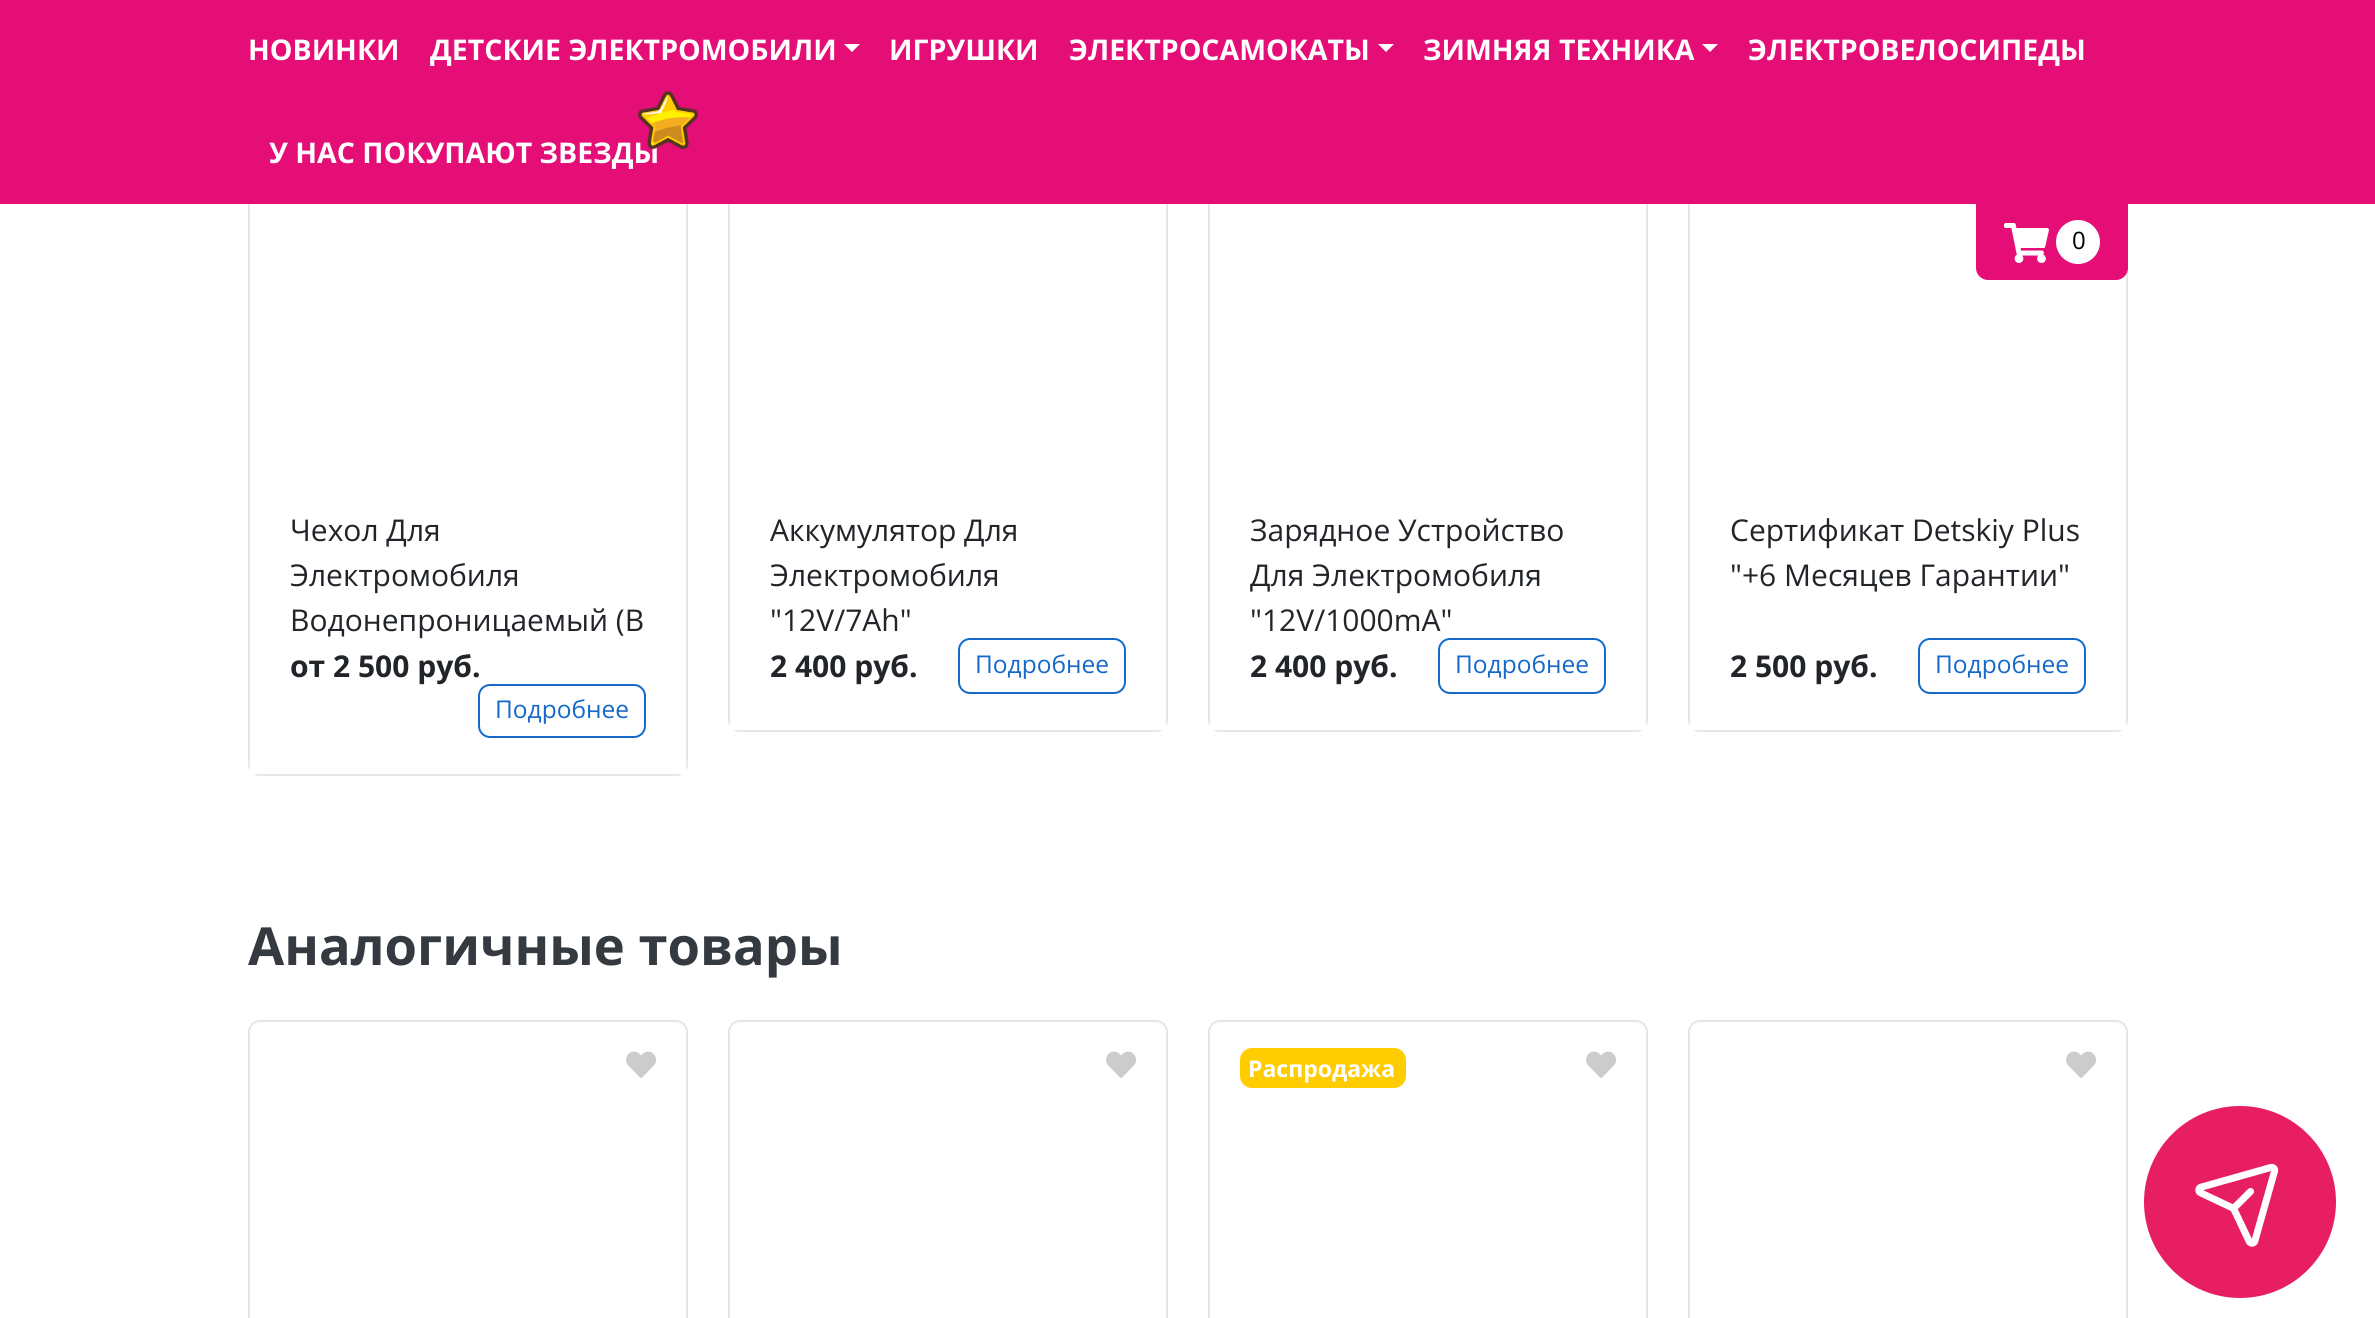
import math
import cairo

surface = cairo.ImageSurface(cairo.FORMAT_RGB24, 2375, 1318)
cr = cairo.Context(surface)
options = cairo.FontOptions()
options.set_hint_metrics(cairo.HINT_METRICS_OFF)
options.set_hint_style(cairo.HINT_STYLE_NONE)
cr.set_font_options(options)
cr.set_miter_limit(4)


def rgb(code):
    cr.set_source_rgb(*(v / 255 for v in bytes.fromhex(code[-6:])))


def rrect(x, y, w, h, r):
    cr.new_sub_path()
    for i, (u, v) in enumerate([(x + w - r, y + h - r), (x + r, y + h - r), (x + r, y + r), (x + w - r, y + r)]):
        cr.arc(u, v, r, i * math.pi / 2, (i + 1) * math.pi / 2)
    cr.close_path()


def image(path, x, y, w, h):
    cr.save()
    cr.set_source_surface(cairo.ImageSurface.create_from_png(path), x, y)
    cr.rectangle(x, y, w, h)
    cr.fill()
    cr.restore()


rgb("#ffffff")
cr.paint()
rrect(249, -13, 438, 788, 11)
rgb("#e6e6e6")
cr.stroke()
rrect(729, -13, 438, 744, 11)
cr.stroke()
rrect(1209, -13, 438, 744, 11)
cr.stroke()
rrect(1689, -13, 438, 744, 11)
cr.stroke()
rgb("#e50d76")
cr.rectangle(0, 0, 2375, 204)
cr.fill()
rgb("#ffffff")
cr.new_path()
cr.move_to(844, 44)
cr.line_to(860, 44)
cr.line_to(852, 52)
cr.close_path()
cr.fill()
cr.new_path()
cr.move_to(1378, 44)
cr.line_to(1394, 44)
cr.line_to(1386, 52)
cr.close_path()
cr.fill()
cr.new_path()
cr.move_to(1702, 44)
cr.line_to(1718, 44)
cr.line_to(1710, 52)
cr.close_path()
cr.fill()
rgb("#e50d76")
cr.new_path()
cr.move_to(1977, 205)
cr.line_to(2127, 205)
cr.line_to(2127, 268)
cr.curve_to(2127, 274, 2122, 279, 2116, 279)
cr.line_to(1988, 279)
cr.curve_to(1982, 279, 1977, 274, 1977, 268)
cr.close_path()
cr.fill_preserve()
cr.stroke()
image("img/2.png", 2004, 223, 45, 40)
rgb("#ffffff")
cr.arc(2078, 242, 22, 0, 2 * math.pi)
cr.fill()
cr.rectangle(250, 765, 436, 9)
cr.fill()
cr.rectangle(730, 721, 436, 9)
cr.fill()
rrect(959, 639, 166, 54, 11)
rgb("#1669c9")
cr.stroke()
rgb("#ffffff")
cr.rectangle(1210, 721, 436, 9)
cr.fill()
rrect(1439, 639, 166, 54, 11)
rgb("#1669c9")
cr.stroke()
rgb("#ffffff")
cr.rectangle(1690, 721, 436, 9)
cr.fill()
rrect(1919, 639, 166, 54, 11)
rgb("#1669c9")
cr.stroke()
rrect(249, 1021, 438, 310, 11)
rgb("#e6e6e6")
cr.stroke()
image("img/3.png", 626, 1051, 30, 27)
rrect(729, 1021, 438, 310, 11)
cr.stroke()
image("img/3.png", 1106, 1051, 30, 27)
rrect(1209, 1021, 438, 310, 11)
cr.stroke()
rgb("#ffcc00")
rrect(1240, 1048, 166, 40, 12)
cr.fill()
image("img/3.png", 1586, 1051, 30, 27)
rrect(1689, 1021, 438, 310, 11)
rgb("#e6e6e6")
cr.stroke()
image("img/3.png", 2066, 1051, 30, 27)
rgb("#e81e63")
cr.arc(2240, 1202, 96, 0, 2 * math.pi)
cr.fill()
image("img/4.png", 2195, 1163, 84, 84)
cr.select_font_face("Open Sans", cairo.FONT_SLANT_NORMAL, cairo.FONT_WEIGHT_BOLD)
cr.set_font_size(28.5)
rgb("#ffffff")
for x, y, s in [
    (248, 60, "НОВИНКИ"),
    (430, 60, "ДЕТСКИЕ ЭЛЕКТРОМОБИЛИ"),
    (889, 60, "ИГРУШКИ"),
    (1069, 60, "ЭЛЕКТРОСАМОКАТЫ"),
    (1423, 60, "ЗИМНЯЯ ТЕХНИКА"),
    (1748, 60, "ЭЛЕКТРОВЕЛОСИПЕДЫ"),
    (269, 163, "У НАС ПОКУПАЮТ ЗВЕЗДЫ"),
]:
    cr.move_to(x, y)
    cr.show_text(s)
image("img/1.png", 638, 90, 60, 60)
cr.select_font_face("Open Sans")
cr.set_font_size(24)
rgb("#000000")
cr.move_to(2072, 249)
cr.show_text("0")
cr.set_font_size(30)
rgb("#212529")
for x, y, s in [
    (290, 541, "Чехол Для"),
    (290, 586, "Электромобиля"),
    (290, 631, "Водонепроницаемый (В"),
]:
    cr.move_to(x, y)
    cr.show_text(s)
cr.select_font_face("Open Sans", cairo.FONT_SLANT_NORMAL, cairo.FONT_WEIGHT_BOLD)
cr.move_to(290, 677)
cr.show_text("от 2 500 руб.")
rrect(479, 685, 166, 52, 11)
rgb("#1669c9")
cr.stroke()
cr.select_font_face("Open Sans")
cr.set_font_size(24.5)
cr.move_to(495, 718)
cr.show_text("Подробнее")
cr.set_font_size(30)
rgb("#212529")
for x, y, s in [
    (770, 541, "Аккумулятор Для"),
    (770, 586, "Электромобиля"),
    (770, 631, "\"12V/7Ah\""),
]:
    cr.move_to(x, y)
    cr.show_text(s)
cr.select_font_face("Open Sans", cairo.FONT_SLANT_NORMAL, cairo.FONT_WEIGHT_BOLD)
cr.move_to(770, 677)
cr.show_text("2 400 руб.")
cr.select_font_face("Open Sans")
cr.set_font_size(24.5)
rgb("#1669c9")
cr.move_to(975, 673)
cr.show_text("Подробнее")
cr.set_font_size(30)
rgb("#212529")
for x, y, s in [
    (1250, 541, "Зарядное Устройство"),
    (1250, 586, "Для Электромобиля"),
    (1250, 631, "\"12V/1000mA\""),
]:
    cr.move_to(x, y)
    cr.show_text(s)
cr.select_font_face("Open Sans", cairo.FONT_SLANT_NORMAL, cairo.FONT_WEIGHT_BOLD)
cr.move_to(1250, 677)
cr.show_text("2 400 руб.")
cr.select_font_face("Open Sans")
cr.set_font_size(24.5)
rgb("#1669c9")
cr.move_to(1455, 673)
cr.show_text("Подробнее")
cr.set_font_size(30)
rgb("#212529")
cr.move_to(1730, 541)
cr.show_text("Сертификат Detskiy Plus")
cr.move_to(1730, 586)
cr.show_text("\"+6 Месяцев Гарантии\"")
cr.select_font_face("Open Sans", cairo.FONT_SLANT_NORMAL, cairo.FONT_WEIGHT_BOLD)
cr.move_to(1730, 677)
cr.show_text("2 500 руб.")
cr.select_font_face("Open Sans")
cr.set_font_size(24.5)
rgb("#1669c9")
cr.move_to(1935, 673)
cr.show_text("Подробнее")
cr.select_font_face("Open Sans", cairo.FONT_SLANT_NORMAL, cairo.FONT_WEIGHT_BOLD)
cr.set_font_size(52.5)
rgb("#343a40")
cr.move_to(248, 965)
cr.show_text("Аналогичные товары")
cr.set_font_size(23)
rgb("#ffffff")
cr.move_to(1248, 1077)
cr.show_text("Распродажа")
surface.write_to_png("page.png")
